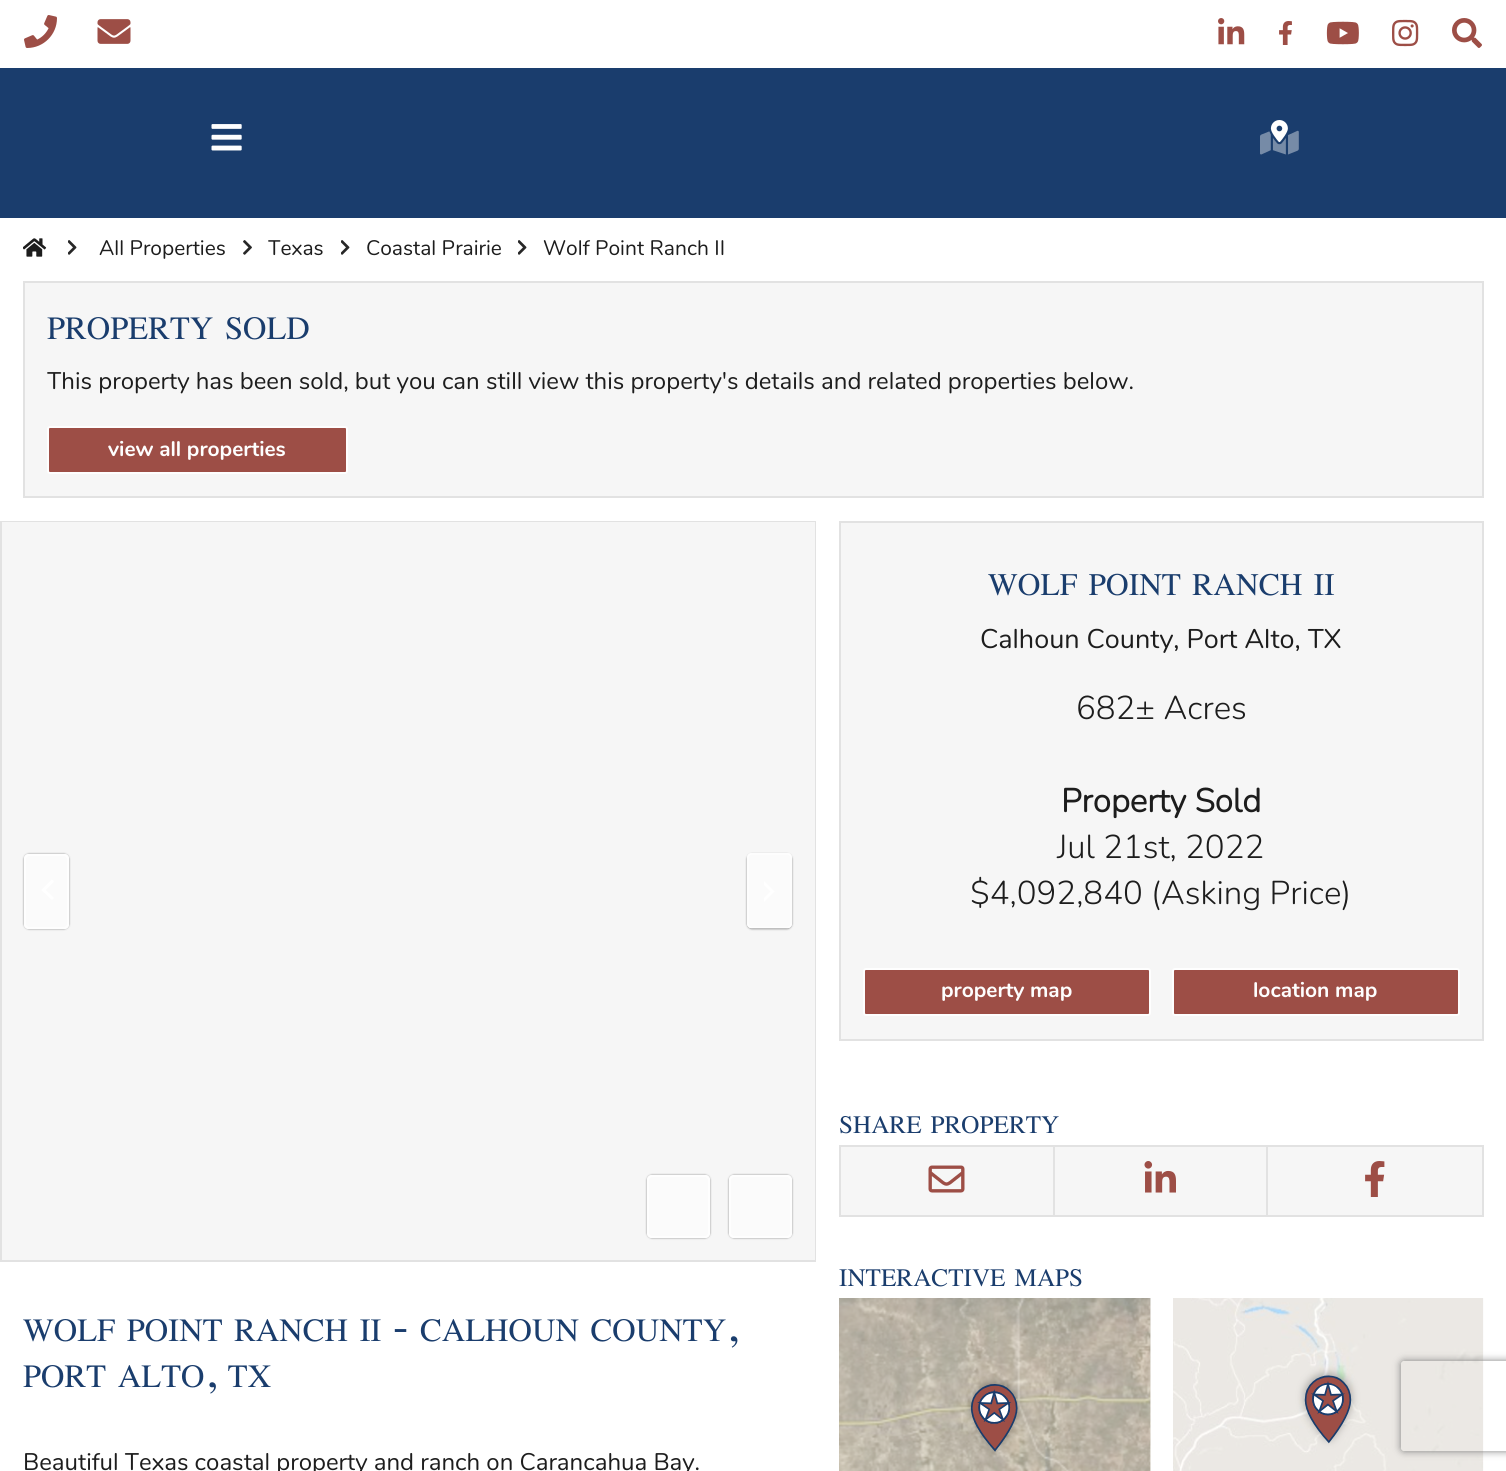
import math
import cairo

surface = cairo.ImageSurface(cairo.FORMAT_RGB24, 1506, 1471)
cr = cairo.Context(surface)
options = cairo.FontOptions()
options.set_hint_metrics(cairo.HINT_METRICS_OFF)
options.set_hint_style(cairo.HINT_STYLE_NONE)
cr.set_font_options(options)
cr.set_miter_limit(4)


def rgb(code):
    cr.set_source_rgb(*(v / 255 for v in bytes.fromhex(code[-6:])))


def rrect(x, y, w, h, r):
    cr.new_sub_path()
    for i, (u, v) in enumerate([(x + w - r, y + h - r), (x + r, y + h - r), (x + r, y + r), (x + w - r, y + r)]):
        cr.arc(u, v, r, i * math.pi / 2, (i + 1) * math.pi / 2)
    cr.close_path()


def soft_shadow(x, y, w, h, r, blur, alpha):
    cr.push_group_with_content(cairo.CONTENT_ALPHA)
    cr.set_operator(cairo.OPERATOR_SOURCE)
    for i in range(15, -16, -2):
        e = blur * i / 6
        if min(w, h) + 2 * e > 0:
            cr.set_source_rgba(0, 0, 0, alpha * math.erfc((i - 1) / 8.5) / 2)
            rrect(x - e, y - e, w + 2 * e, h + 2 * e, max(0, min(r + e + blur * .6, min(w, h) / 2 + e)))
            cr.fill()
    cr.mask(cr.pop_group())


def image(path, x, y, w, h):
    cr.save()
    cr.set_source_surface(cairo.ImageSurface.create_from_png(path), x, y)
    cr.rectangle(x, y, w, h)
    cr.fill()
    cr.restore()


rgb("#ffffff")
cr.paint()
image("img/1.png", 24, 15, 33, 33)
image("img/2.png", 97, 19, 34, 25)
image("img/3.png", 1218, 18, 27, 27)
image("img/4.png", 1279, 21, 13, 24)
image("img/5.png", 1326, 21, 33, 24)
image("img/6.png", 1392, 19, 27, 28)
image("img/7.png", 1452, 18, 30, 30)
rgb("#1a3d6d")
cr.rectangle(0, 68, 1506, 150)
cr.fill()
image("img/8.png", 211, 124, 31, 27)
image("img/9.png", 1260, 120, 39, 35)
image("img/10.png", 23, 238, 24, 19)
image("img/11.png", 68, 240, 9, 15)
image("img/12.png", 243, 240, 9, 15)
image("img/11.png", 341, 240, 9, 15)
image("img/11.png", 518, 240, 9, 15)
rgb("#f6f6f6")
cr.rectangle(24, 282, 1459, 215)
cr.fill_preserve()
rgb("#e2e2e2")
cr.stroke()
rgb("#9d4e46")
rrect(48, 427, 299, 46, 2)
cr.fill_preserve()
rgb("#fefefe")
cr.stroke()
cr.rectangle(1, 522, 814, 739)
rgb("#e2e2e2")
cr.stroke()
rgb("#f6f6f6")
cr.rectangle(2, 522, 813, 738)
cr.fill()
cr.save()
cr.set_fill_rule(cairo.FILL_RULE_EVEN_ODD)
cr.new_path()
cr.move_to(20, 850)
cr.line_to(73, 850)
cr.line_to(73, 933)
cr.line_to(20, 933)
cr.close_path()
cr.move_to(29, 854)
cr.line_to(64, 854)
cr.curve_to(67, 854, 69, 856, 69, 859)
cr.line_to(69, 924)
cr.curve_to(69, 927, 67, 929, 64, 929)
cr.line_to(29, 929)
cr.curve_to(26, 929, 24, 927, 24, 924)
cr.line_to(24, 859)
cr.curve_to(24, 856, 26, 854, 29, 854)
cr.close_path()
cr.clip()
rgb("#1d1d1d")
soft_shadow(24, 854, 45, 75, 5, 1, 0.5)
cr.restore()
cr.set_source_rgba(1, 1, 1, 0.5)
rrect(24, 854, 45, 75, 5)
cr.fill()
cr.new_path()
cr.move_to(53, 880.5)
cr.line_to(43.5, 890)
cr.line_to(53, 899)
rgb("#ffffff")
cr.set_line_width(3)
cr.stroke()
rrect(25, 855, 43, 73, 4)
rgb("#fefefe")
cr.set_line_width(2)
cr.stroke()
cr.save()
cr.set_fill_rule(cairo.FILL_RULE_EVEN_ODD)
cr.new_path()
cr.move_to(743, 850)
cr.line_to(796, 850)
cr.line_to(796, 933)
cr.line_to(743, 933)
cr.close_path()
cr.move_to(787.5, 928)
cr.line_to(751.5, 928)
cr.curve_to(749, 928, 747, 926, 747, 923.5)
cr.line_to(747, 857.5)
cr.curve_to(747, 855.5, 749, 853, 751.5, 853)
cr.line_to(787.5, 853)
cr.curve_to(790, 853, 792, 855.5, 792, 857.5)
cr.line_to(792, 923.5)
cr.curve_to(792, 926, 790, 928, 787.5, 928)
cr.close_path()
cr.clip()
rgb("#1d1d1d")
soft_shadow(747, 854, 45, 75, 5, 1, 0.5)
cr.restore()
cr.set_source_rgba(1, 1, 1, 0.5)
cr.new_path()
cr.move_to(788, 928)
cr.line_to(752, 928)
cr.curve_to(749, 928, 747, 926, 747, 924)
cr.line_to(747, 858)
cr.curve_to(747, 855, 749, 853, 752, 853)
cr.line_to(788, 853)
cr.curve_to(790, 853, 792, 855, 792, 858)
cr.line_to(792, 924)
cr.curve_to(792, 926, 790, 928, 788, 928)
cr.close_path()
cr.fill()
cr.save()
cr.rectangle(764, 879, 13, 23)
cr.clip()
cr.new_path()
cr.move_to(763, 901)
cr.line_to(772.5, 891.5)
cr.line_to(763, 882)
rgb("#ffffff")
cr.set_line_width(3)
cr.stroke()
cr.restore()
cr.new_path()
cr.move_to(787.5, 927.5)
cr.line_to(751.5, 927.5)
cr.curve_to(749.5, 927.5, 748, 926, 748, 923.5)
cr.line_to(748, 857.5)
cr.curve_to(748, 855.5, 749.5, 854, 751.5, 854)
cr.line_to(787.5, 854)
cr.curve_to(789.5, 854, 791, 855.5, 791, 857.5)
cr.line_to(791, 923.5)
cr.curve_to(791, 926, 789.5, 927.5, 787.5, 927.5)
cr.close_path()
rgb("#fefefe")
cr.set_line_width(1.5)
cr.stroke()
cr.save()
cr.set_fill_rule(cairo.FILL_RULE_EVEN_ODD)
cr.new_path()
cr.move_to(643, 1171)
cr.line_to(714, 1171)
cr.line_to(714, 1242)
cr.line_to(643, 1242)
cr.close_path()
cr.move_to(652, 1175)
cr.line_to(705, 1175)
cr.curve_to(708, 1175, 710, 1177, 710, 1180)
cr.line_to(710, 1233)
cr.curve_to(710, 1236, 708, 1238, 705, 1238)
cr.line_to(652, 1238)
cr.curve_to(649, 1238, 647, 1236, 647, 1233)
cr.line_to(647, 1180)
cr.curve_to(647, 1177, 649, 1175, 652, 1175)
cr.close_path()
cr.clip()
rgb("#1d1d1d")
soft_shadow(647, 1175, 63, 63, 5, 1, 0.5)
cr.restore()
cr.set_source_rgba(1, 1, 1, 0.5)
rrect(648, 1176, 61, 61, 4)
cr.fill_preserve()
rgb("#fefefe")
cr.set_line_width(2)
cr.stroke()
cr.save()
cr.set_fill_rule(cairo.FILL_RULE_EVEN_ODD)
cr.new_path()
cr.move_to(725, 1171)
cr.line_to(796, 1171)
cr.line_to(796, 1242)
cr.line_to(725, 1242)
cr.close_path()
cr.move_to(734, 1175)
cr.line_to(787, 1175)
cr.curve_to(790, 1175, 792, 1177, 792, 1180)
cr.line_to(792, 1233)
cr.curve_to(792, 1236, 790, 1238, 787, 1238)
cr.line_to(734, 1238)
cr.curve_to(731, 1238, 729, 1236, 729, 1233)
cr.line_to(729, 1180)
cr.curve_to(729, 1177, 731, 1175, 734, 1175)
cr.close_path()
cr.clip()
rgb("#1d1d1d")
soft_shadow(729, 1175, 63, 63, 5, 1, 0.5)
cr.restore()
cr.set_source_rgba(1, 1, 1, 0.5)
rrect(730, 1176, 61, 61, 4)
cr.fill_preserve()
rgb("#fefefe")
cr.stroke()
rgb("#f6f6f6")
cr.rectangle(840, 522, 643, 518)
cr.fill_preserve()
rgb("#e2e2e2")
cr.stroke()
rgb("#9d4e46")
rrect(864, 969, 286, 46, 2)
cr.fill_preserve()
rgb("#fefefe")
cr.stroke()
rgb("#9d4e46")
rrect(1173, 969, 286, 46, 2)
cr.fill_preserve()
rgb("#fefefe")
cr.stroke()
rgb("#f6f6f6")
cr.rectangle(840, 1146, 643, 70)
cr.fill_preserve()
rgb("#e2e2e2")
cr.stroke()
cr.rectangle(1053, 1146, 2, 69)
cr.fill()
image("img/13.png", 928, 1165, 37, 28)
cr.rectangle(1266, 1146, 2, 69)
cr.fill()
image("img/14.png", 1144, 1161, 32, 32)
image("img/15.png", 1365, 1161, 20, 36)
image("img/16.png", 839, 1298, 312, 173)
image("img/17.png", 1173, 1298, 311, 173)
cr.save()
cr.set_fill_rule(cairo.FILL_RULE_EVEN_ODD)
cr.new_path()
cr.move_to(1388, 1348)
cr.line_to(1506, 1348)
cr.line_to(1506, 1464)
cr.line_to(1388, 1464)
cr.close_path()
cr.move_to(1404, 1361)
cr.line_to(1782, 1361)
cr.curve_to(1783.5, 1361, 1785, 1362.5, 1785, 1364)
cr.line_to(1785, 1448)
cr.curve_to(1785, 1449.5, 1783.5, 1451, 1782, 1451)
cr.line_to(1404, 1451)
cr.curve_to(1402.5, 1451, 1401, 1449.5, 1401, 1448)
cr.line_to(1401, 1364)
cr.curve_to(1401, 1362.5, 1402.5, 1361, 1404, 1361)
cr.close_path()
cr.clip()
rgb("#808080")
soft_shadow(1401, 1361, 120, 90, 3, 4, 1)
cr.restore()
cr.select_font_face("Nunito")
cr.set_font_size(21)
rgb("#1d1d1d")
for x, y, s in [
    (99, 255, "All Properties"),
    (268, 255, "Texas"),
    (366, 255, "Coastal Prairie"),
    (543, 255, "Wolf Point Ranch II"),
]:
    cr.move_to(x, y)
    cr.show_text(s)
cr.select_font_face("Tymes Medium")
cr.set_font_size(46.5)
rgb("#1a3d6d")
cr.move_to(47, 339)
cr.show_text("property sold")
cr.select_font_face("Nunito")
cr.set_font_size(24)
rgb("#1d1d1d")
cr.move_to(47, 389)
cr.show_text("This property has been sold, but you can still view this property's details and related properties below.")
cr.select_font_face("Nunito", cairo.FONT_SLANT_NORMAL, cairo.FONT_WEIGHT_BOLD)
cr.set_font_size(21)
rgb("#fefefe")
cr.move_to(108, 456)
cr.show_text("view all properties")
cr.select_font_face("Tymes Medium")
cr.set_font_size(45)
rgb("#1a3d6d")
cr.move_to(988, 595)
cr.show_text("wolf point ranch ii")
cr.select_font_face("Nunito")
cr.set_font_size(27)
rgb("#1d1d1d")
cr.move_to(980, 648)
cr.show_text("Calhoun County, Port Alto, TX")
cr.select_font_face("Nunito Light")
cr.set_font_size(33)
cr.move_to(1076, 719)
cr.show_text("682± Acres")
cr.select_font_face("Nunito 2", cairo.FONT_SLANT_NORMAL, cairo.FONT_WEIGHT_BOLD)
cr.move_to(1061, 812)
cr.show_text("Property Sold")
cr.select_font_face("Nunito Light")
cr.move_to(1057, 858)
cr.show_text("Jul 21st, 2022")
cr.move_to(970, 904)
cr.show_text("$4,092,840 (Asking Price)")
cr.select_font_face("Nunito", cairo.FONT_SLANT_NORMAL, cairo.FONT_WEIGHT_BOLD)
cr.set_font_size(21)
rgb("#fefefe")
cr.move_to(941, 997)
cr.show_text("property map")
cr.move_to(1253, 997)
cr.show_text("location map")
cr.select_font_face("Tymes Medium")
cr.set_font_size(36)
rgb("#1a3d6d")
cr.move_to(839, 1133)
cr.show_text("share property")
cr.move_to(839, 1286)
cr.show_text("interactive maps")
cr.set_font_size(46.5)
cr.move_to(23, 1341)
cr.show_text("wolf point ranch ii - calhoun county,")
cr.move_to(23, 1387)
cr.show_text("port alto, tx")
cr.select_font_face("Nunito")
cr.set_font_size(24)
rgb("#1d1d1d")
cr.move_to(23, 1470)
cr.show_text("Beautiful Texas coastal property and ranch on Carancahua Bay.")
surface.write_to_png("page.png")
